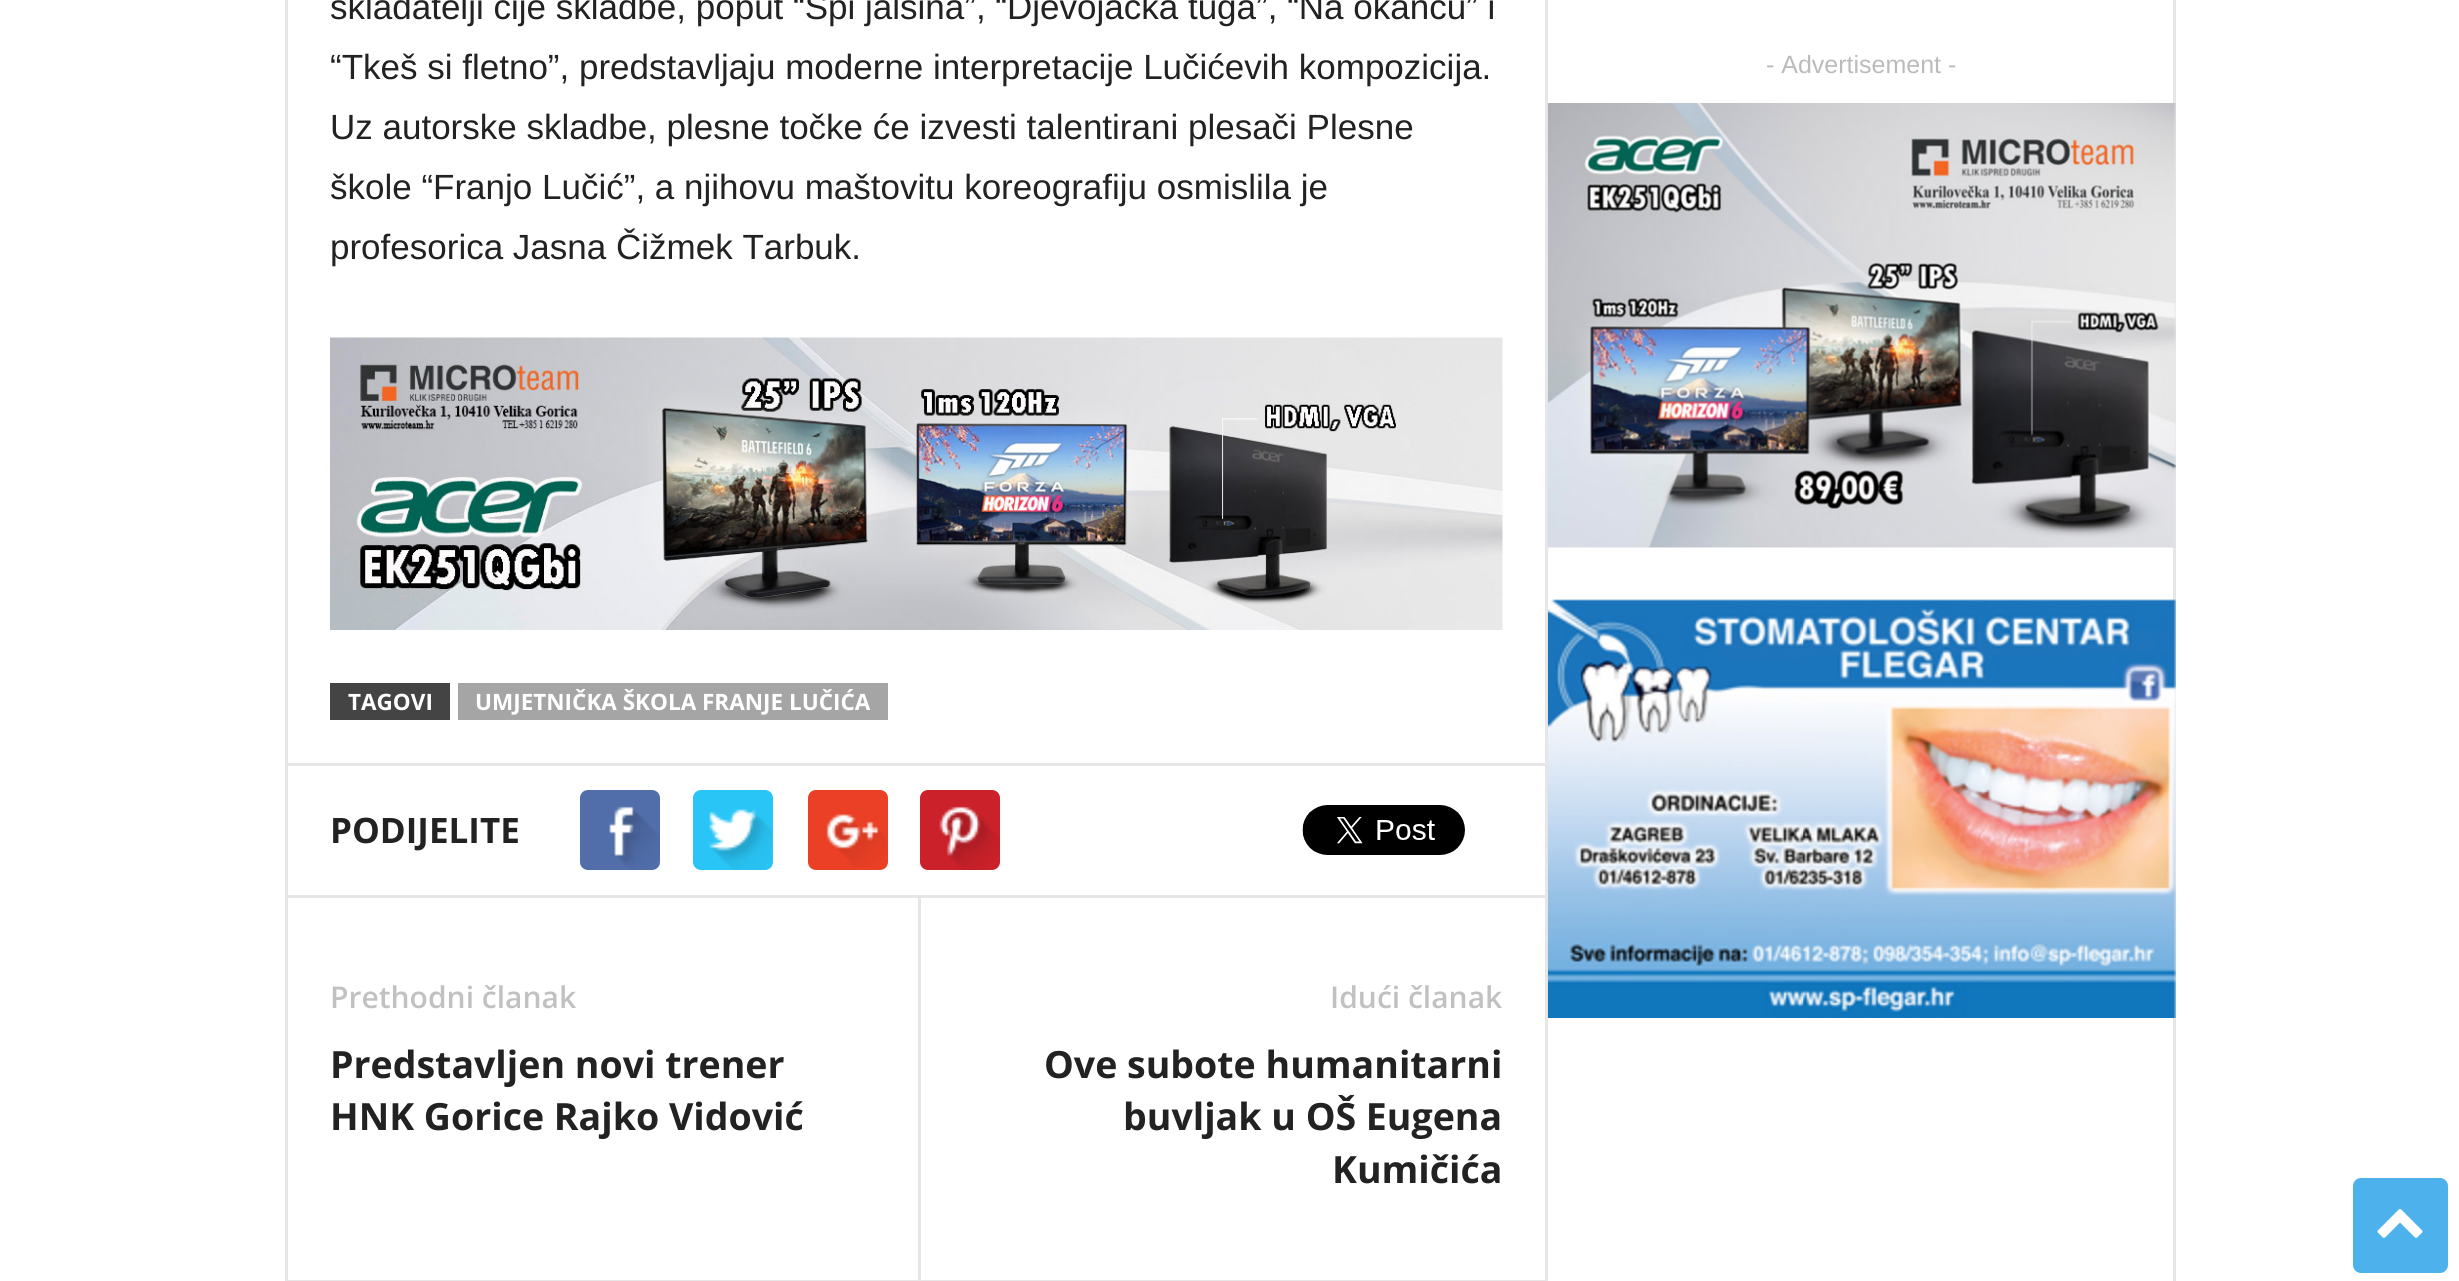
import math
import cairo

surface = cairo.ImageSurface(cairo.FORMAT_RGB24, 2459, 1281)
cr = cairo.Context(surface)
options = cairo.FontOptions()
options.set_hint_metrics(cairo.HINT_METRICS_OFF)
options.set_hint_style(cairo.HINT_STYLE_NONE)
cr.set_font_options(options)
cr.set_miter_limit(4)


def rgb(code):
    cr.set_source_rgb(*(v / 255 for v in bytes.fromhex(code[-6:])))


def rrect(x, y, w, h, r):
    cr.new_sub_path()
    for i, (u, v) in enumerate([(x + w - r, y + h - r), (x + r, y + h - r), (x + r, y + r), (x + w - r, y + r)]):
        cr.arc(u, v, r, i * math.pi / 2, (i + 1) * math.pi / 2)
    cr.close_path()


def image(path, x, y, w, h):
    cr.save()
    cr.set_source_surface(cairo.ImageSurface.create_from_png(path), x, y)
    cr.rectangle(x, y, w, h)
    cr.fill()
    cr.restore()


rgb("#ffffff")
cr.paint()
rgb("#e6e6e6")
cr.rectangle(285, 0, 3, 1281)
cr.fill()
image("img/1.png", 330, 337, 1173, 293)
for x, y, w, h, color in [
    (330, 683, 120, 37, "#444444"),
    (458, 683, 430, 37, "#a5a5a5"),
    (288, 763, 1257, 3, "#e6e6e6"),
]:
    rgb(color)
    cr.rectangle(x, y, w, h)
    cr.fill()
rgb("#516eab")
rrect(580, 790, 80, 80, 8)
cr.fill()
image("img/2.png", 609, 806, 51, 64)
rgb("#29c5f6")
rrect(693, 790, 80, 80, 8)
cr.fill()
image("img/3.png", 708, 809, 64, 61)
rgb("#eb4026")
rrect(808, 790, 80, 80, 8)
cr.fill()
image("img/4.png", 826, 814, 61, 53)
rgb("#ca212a")
rrect(920, 790, 80, 80, 8)
cr.fill()
image("img/5.png", 939, 806, 61, 64)
image("img/6.png", 1302, 805, 163, 50)
for x, y, w, h, color in [
    (288, 895, 1257, 3, "#e6e6e6"),
    (918, 898, 3, 382, "#e6e6e6"),
    (288, 1280, 1257, 1, "#e6e6e6"),
    (1545, 0, 3, 1281, "#e6e6e6"),
    (2173, 0, 3, 1281, "#e6e6e6"),
]:
    rgb(color)
    cr.rectangle(x, y, w, h)
    cr.fill()
image("img/7.png", 1548, 103, 628, 445)
image("img/8.png", 1548, 599, 628, 419)
rgb("#4db2ec")
rrect(2353, 1178, 95, 95, 8)
cr.fill()
image("img/9.png", 2377, 1209, 46, 29)
cr.select_font_face("Liberation Sans")
cr.set_font_size(35)
rgb("#222222")
for x, y, s in [
    (330, 19, "skladatelji čije skladbe, poput “Spi jalšina”, “Djevojačka tuga”, “Na okancu” i"),
    (330, 79, "“Tkeš si fletno”, predstavljaju moderne interpretacije Lučićevih kompozicija."),
    (330, 139, "Uz autorske skladbe, plesne točke će izvesti talentirani plesači Plesne"),
    (330, 199, "škole “Franjo Lučić”, a njihovu maštovitu koreografiju osmislila je"),
    (330, 259, "profesorica Jasna Čižmek Tarbuk."),
]:
    cr.move_to(x, y)
    cr.show_text(s)
cr.select_font_face("Open Sans", cairo.FONT_SLANT_NORMAL, cairo.FONT_WEIGHT_BOLD)
cr.set_font_size(22.5)
rgb("#ffffff")
cr.move_to(348, 710)
cr.show_text("TAGOVI")
cr.move_to(475, 710)
cr.show_text("UMJETNIČKA ŠKOLA FRANJE LUČIĆA")
cr.set_font_size(35)
rgb("#222222")
cr.move_to(330, 843)
cr.show_text("PODIJELITE")
cr.select_font_face("Open Sans SemiBold")
cr.set_font_size(30)
rgb("#c1c1c1")
cr.move_to(330, 1008)
cr.show_text("Prethodni članak")
cr.select_font_face("Open Sans", cairo.FONT_SLANT_NORMAL, cairo.FONT_WEIGHT_BOLD)
cr.set_font_size(37.5)
rgb("#222222")
cr.move_to(330, 1078)
cr.show_text("Predstavljen novi trener")
cr.move_to(330, 1130)
cr.show_text("HNK Gorice Rajko Vidović")
cr.select_font_face("Open Sans SemiBold")
cr.set_font_size(30)
rgb("#c1c1c1")
cr.move_to(1330, 1008)
cr.show_text("Idući članak")
cr.select_font_face("Open Sans", cairo.FONT_SLANT_NORMAL, cairo.FONT_WEIGHT_BOLD)
cr.set_font_size(37.5)
rgb("#222222")
for x, y, s in [
    (1044, 1078, "Ove subote humanitarni"),
    (1123, 1130, "buvljak u OŠ Eugena"),
    (1332, 1183, "Kumičića"),
]:
    cr.move_to(x, y)
    cr.show_text(s)
cr.select_font_face("Liberation Sans")
cr.set_font_size(25)
rgb("#bbbbbb")
cr.move_to(1766, 73)
cr.show_text("- Advertisement -")
surface.write_to_png("page.png")
